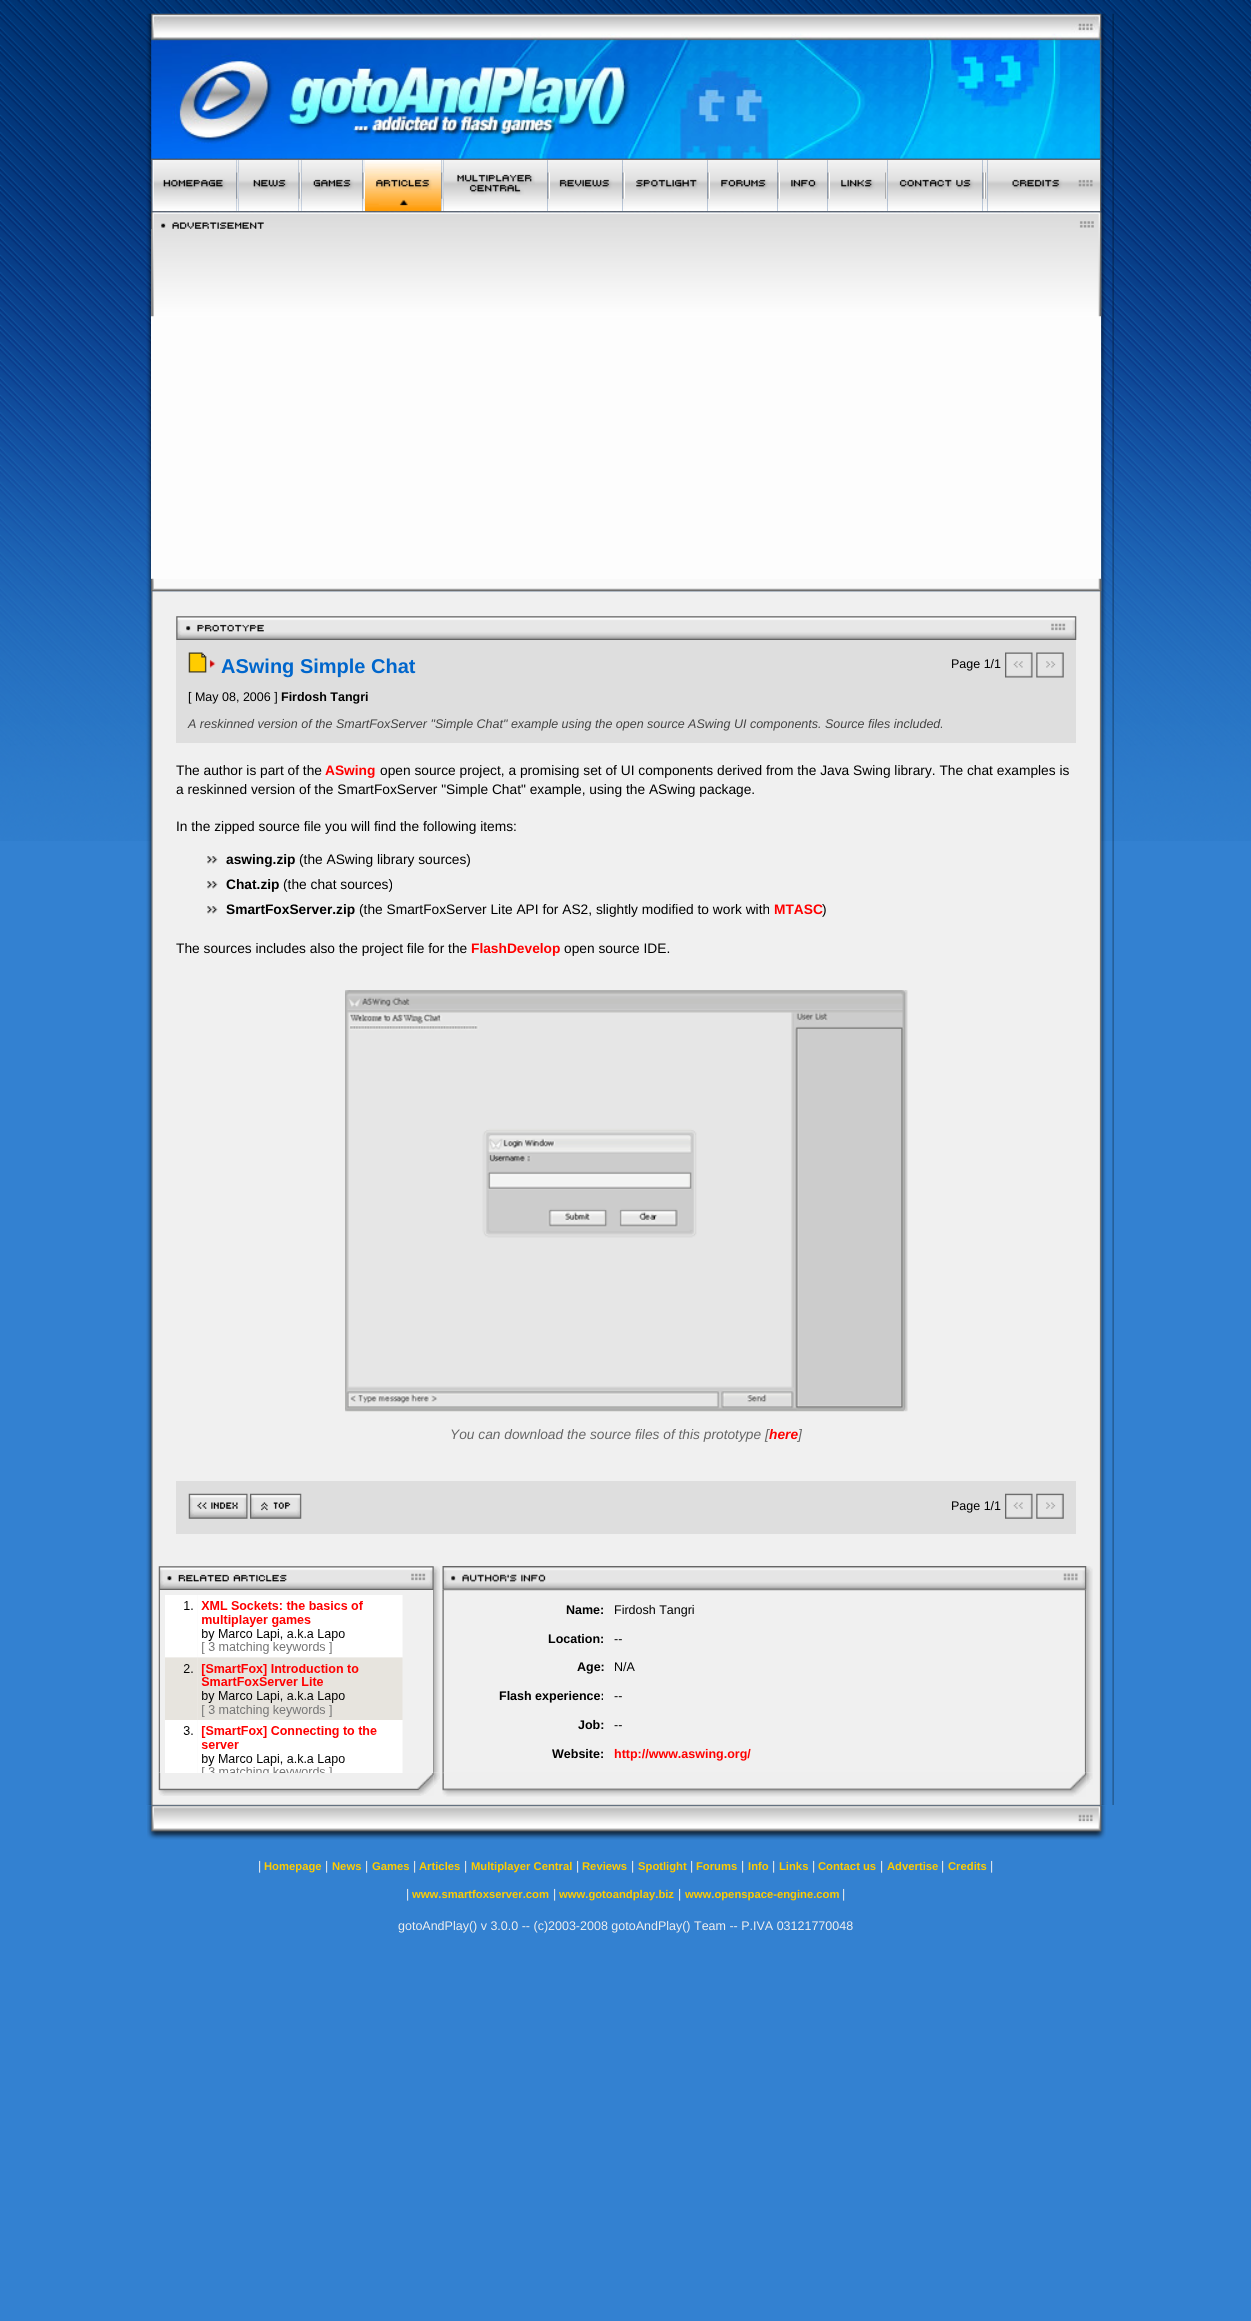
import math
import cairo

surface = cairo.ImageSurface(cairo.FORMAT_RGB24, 1251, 2321)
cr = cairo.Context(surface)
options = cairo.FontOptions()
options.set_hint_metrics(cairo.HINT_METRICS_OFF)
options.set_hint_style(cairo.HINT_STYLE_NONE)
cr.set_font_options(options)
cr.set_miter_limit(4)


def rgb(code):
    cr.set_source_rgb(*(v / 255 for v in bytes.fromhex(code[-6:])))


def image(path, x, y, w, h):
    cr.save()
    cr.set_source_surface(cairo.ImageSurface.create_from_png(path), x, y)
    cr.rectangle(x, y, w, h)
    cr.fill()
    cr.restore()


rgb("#3381d1")
cr.paint()
image("img/1.png", 0, 0, 1251, 841)
image("img/2.png", 146, 13, 6, 1792)
image("img/4.png", 1101, 13, 13, 1792)
image("img/3.png", 151, 13, 951, 146)
image("img/5.png", 151, 158, 951, 2)
image("img/6.png", 151, 160, 2, 52)
image("img/7.png", 152, 160, 85, 52)
image("img/8.png", 236, 160, 3, 52)
image("img/9.png", 238, 160, 61, 52)
image("img/10.png", 298, 160, 4, 52)
image("img/11.png", 301, 160, 62, 52)
image("img/12.png", 362, 160, 3, 52)
image("img/13.png", 365, 160, 77, 52)
image("img/14.png", 441, 160, 3, 52)
image("img/15.png", 443, 160, 105, 52)
image("img/16.png", 547, 160, 3, 52)
image("img/17.png", 550, 160, 73, 52)
image("img/18.png", 622, 160, 3, 52)
image("img/19.png", 625, 160, 83, 52)
image("img/20.png", 707, 160, 3, 52)
image("img/21.png", 710, 160, 68, 52)
image("img/22.png", 777, 160, 3, 52)
image("img/23.png", 780, 160, 48, 52)
image("img/24.png", 827, 160, 3, 52)
image("img/25.png", 830, 160, 55, 52)
image("img/26.png", 885, 160, 3, 52)
image("img/27.png", 887, 160, 96, 52)
image("img/28.png", 982, 160, 3, 52)
image("img/29.png", 985, 160, 3, 52)
image("img/30.png", 987, 160, 113, 52)
image("img/31.png", 1100, 160, 2, 52)
image("img/33.png", 151, 212, 951, 380)
image("img/32.png", 151, 211, 951, 2)
rgb("#fdfdfd")
cr.rectangle(151, 229, 950, 350)
cr.fill()
image("img/35.png", 151, 228, 951, 89)
image("img/34.png", 151, 212, 951, 17)
image("img/37.png", 151, 591, 951, 1214)
image("img/36.png", 151, 578, 951, 14)
rgb("#dedede")
cr.rectangle(176, 616, 900, 127)
cr.fill()
image("img/38.png", 176, 616, 901, 24)
image("img/39.png", 188, 652, 28, 21)
image("img/40.png", 1005, 652, 28, 26)
image("img/41.png", 1036, 652, 28, 26)
image("img/42.png", 207, 856, 11, 8)
image("img/42.png", 207, 881, 11, 8)
image("img/42.png", 207, 906, 11, 8)
image("img/43.png", 345, 990, 563, 422)
cr.rectangle(176, 1481, 900, 53)
cr.fill()
image("img/44.png", 188, 1493, 60, 26)
image("img/45.png", 250, 1493, 52, 26)
image("img/46.png", 1005, 1493, 28, 26)
image("img/47.png", 1036, 1493, 28, 26)
image("img/49.png", 433, 1566, 7, 24)
image("img/48.png", 158, 1566, 276, 24)
image("img/50.png", 158, 1590, 276, 183)
image("img/52.png", 433, 1590, 7, 183)
image("img/53.png", 158, 1772, 276, 24)
image("img/51.png", 160, 1590, 273, 183)
image("img/54.png", 433, 1772, 7, 13)
image("img/56.png", 1086, 1566, 7, 24)
image("img/57.png", 442, 1590, 645, 183)
image("img/58.png", 1086, 1590, 7, 183)
image("img/55.png", 442, 1566, 645, 25)
image("img/60.png", 1086, 1772, 7, 13)
image("img/59.png", 442, 1772, 645, 25)
image("img/61.png", 147, 1804, 959, 36)
cr.select_font_face("Liberation Sans", cairo.FONT_SLANT_NORMAL, cairo.FONT_WEIGHT_BOLD)
cr.set_font_size(20)
rgb("#0066cc")
cr.move_to(221, 673)
cr.show_text("ASwing Simple Chat")
cr.select_font_face("Liberation Sans")
cr.set_font_size(12.5)
rgb("#000000")
cr.move_to(951, 668)
cr.show_text("Page 1/1")
cr.move_to(188, 701)
cr.show_text("[ May 08, 2006 ]")
cr.select_font_face("Liberation Sans", cairo.FONT_SLANT_NORMAL, cairo.FONT_WEIGHT_BOLD)
cr.move_to(281, 701)
cr.show_text("Firdosh Tangri")
cr.select_font_face("Liberation Sans", cairo.FONT_SLANT_ITALIC)
rgb("#444444")
cr.move_to(188, 728)
cr.show_text("A reskinned version of the SmartFoxServer \"Simple Chat\" example using the open source ASwing UI components. Source files included.")
cr.select_font_face("Liberation Sans")
cr.set_font_size(13.75)
rgb("#000000")
cr.move_to(176, 775)
cr.show_text("The author is part of the")
cr.select_font_face("Liberation Sans", cairo.FONT_SLANT_NORMAL, cairo.FONT_WEIGHT_BOLD)
rgb("#ff0000")
cr.move_to(325, 775)
cr.show_text("ASwing")
cr.select_font_face("Liberation Sans")
rgb("#000000")
for x, y, s in [
    (380, 775, "open source project, a promising set of UI components derived from the Java Swing library. The chat examples is"),
    (176, 794, "a reskinned version of the SmartFoxServer \"Simple Chat\" example, using the ASwing package."),
    (176, 831, "In the zipped source file you will find the following items:"),
]:
    cr.move_to(x, y)
    cr.show_text(s)
cr.select_font_face("Liberation Sans", cairo.FONT_SLANT_NORMAL, cairo.FONT_WEIGHT_BOLD)
cr.move_to(226, 864)
cr.show_text("aswing.zip")
cr.select_font_face("Liberation Sans")
cr.move_to(299, 864)
cr.show_text("(the ASwing library sources)")
cr.select_font_face("Liberation Sans", cairo.FONT_SLANT_NORMAL, cairo.FONT_WEIGHT_BOLD)
cr.move_to(226, 889)
cr.show_text("Chat.zip")
cr.select_font_face("Liberation Sans")
cr.move_to(283, 889)
cr.show_text("(the chat sources)")
cr.select_font_face("Liberation Sans", cairo.FONT_SLANT_NORMAL, cairo.FONT_WEIGHT_BOLD)
cr.move_to(226, 914)
cr.show_text("SmartFoxServer.zip")
cr.select_font_face("Liberation Sans")
cr.move_to(359, 914)
cr.show_text("(the SmartFoxServer Lite API for AS2, slightly modified to work with")
cr.select_font_face("Liberation Sans", cairo.FONT_SLANT_NORMAL, cairo.FONT_WEIGHT_BOLD)
rgb("#ff0000")
cr.move_to(774, 914)
cr.show_text("MTASC")
cr.select_font_face("Liberation Sans")
rgb("#000000")
cr.move_to(822, 914)
cr.show_text(")")
cr.move_to(176, 953)
cr.show_text("The sources includes also the project file for the")
cr.select_font_face("Liberation Sans", cairo.FONT_SLANT_NORMAL, cairo.FONT_WEIGHT_BOLD)
rgb("#ff0000")
cr.move_to(471, 953)
cr.show_text("FlashDevelop")
cr.select_font_face("Liberation Sans")
rgb("#000000")
cr.move_to(564, 953)
cr.show_text("open source IDE.")
cr.select_font_face("Liberation Sans", cairo.FONT_SLANT_ITALIC)
rgb("#666666")
cr.move_to(450, 1439)
cr.show_text("You can download the source files of this prototype [")
cr.select_font_face("Liberation Sans", cairo.FONT_SLANT_ITALIC, cairo.FONT_WEIGHT_BOLD)
rgb("#ff0000")
cr.move_to(769, 1439)
cr.show_text("here")
cr.select_font_face("Liberation Sans", cairo.FONT_SLANT_ITALIC)
rgb("#666666")
cr.move_to(798, 1439)
cr.show_text("]")
cr.select_font_face("Liberation Sans")
cr.set_font_size(12.5)
rgb("#000000")
cr.move_to(951, 1510)
cr.show_text("Page 1/1")
cr.select_font_face("Liberation Sans", cairo.FONT_SLANT_NORMAL, cairo.FONT_WEIGHT_BOLD)
cr.move_to(566, 1614)
cr.show_text("Name:")
cr.select_font_face("Liberation Sans")
cr.move_to(614, 1614)
cr.show_text("Firdosh Tangri")
cr.select_font_face("Liberation Sans", cairo.FONT_SLANT_NORMAL, cairo.FONT_WEIGHT_BOLD)
cr.move_to(548, 1643)
cr.show_text("Location:")
cr.select_font_face("Liberation Sans")
cr.move_to(614, 1643)
cr.show_text("--")
cr.select_font_face("Liberation Sans", cairo.FONT_SLANT_NORMAL, cairo.FONT_WEIGHT_BOLD)
cr.move_to(577, 1671)
cr.show_text("Age:")
cr.select_font_face("Liberation Sans")
cr.move_to(614, 1671)
cr.show_text("N/A")
cr.select_font_face("Liberation Sans", cairo.FONT_SLANT_NORMAL, cairo.FONT_WEIGHT_BOLD)
cr.move_to(499, 1700)
cr.show_text("Flash experience:")
cr.select_font_face("Liberation Sans")
cr.move_to(614, 1700)
cr.show_text("--")
cr.select_font_face("Liberation Sans", cairo.FONT_SLANT_NORMAL, cairo.FONT_WEIGHT_BOLD)
cr.move_to(578, 1729)
cr.show_text("Job:")
cr.select_font_face("Liberation Sans")
cr.move_to(614, 1729)
cr.show_text("--")
cr.select_font_face("Liberation Sans", cairo.FONT_SLANT_NORMAL, cairo.FONT_WEIGHT_BOLD)
cr.move_to(552, 1758)
cr.show_text("Website:")
rgb("#ff0000")
cr.move_to(614, 1758)
cr.show_text("http://www.aswing.org/")
cr.select_font_face("Liberation Sans")
rgb("#eeeeee")
cr.move_to(258, 1870)
cr.show_text("|")
cr.select_font_face("Liberation Sans", cairo.FONT_SLANT_NORMAL, cairo.FONT_WEIGHT_BOLD)
cr.set_font_size(11.25)
rgb("#ffcc00")
cr.move_to(264, 1870)
cr.show_text("Homepage")
cr.select_font_face("Liberation Sans")
cr.set_font_size(12.5)
rgb("#eeeeee")
cr.move_to(325, 1870)
cr.show_text("|")
cr.select_font_face("Liberation Sans", cairo.FONT_SLANT_NORMAL, cairo.FONT_WEIGHT_BOLD)
cr.set_font_size(11.25)
rgb("#ffcc00")
cr.move_to(332, 1870)
cr.show_text("News")
cr.select_font_face("Liberation Sans")
cr.set_font_size(12.5)
rgb("#eeeeee")
cr.move_to(365, 1870)
cr.show_text("|")
cr.select_font_face("Liberation Sans", cairo.FONT_SLANT_NORMAL, cairo.FONT_WEIGHT_BOLD)
cr.set_font_size(11.25)
rgb("#ffcc00")
cr.move_to(372, 1870)
cr.show_text("Games")
cr.select_font_face("Liberation Sans")
cr.set_font_size(12.5)
rgb("#eeeeee")
cr.move_to(413, 1870)
cr.show_text("|")
cr.select_font_face("Liberation Sans", cairo.FONT_SLANT_NORMAL, cairo.FONT_WEIGHT_BOLD)
cr.set_font_size(11.25)
rgb("#ffcc00")
cr.move_to(419, 1870)
cr.show_text("Articles")
cr.select_font_face("Liberation Sans")
cr.set_font_size(12.5)
rgb("#eeeeee")
cr.move_to(464, 1870)
cr.show_text("|")
cr.select_font_face("Liberation Sans", cairo.FONT_SLANT_NORMAL, cairo.FONT_WEIGHT_BOLD)
cr.set_font_size(11.25)
rgb("#ffcc00")
cr.move_to(471, 1870)
cr.show_text("Multiplayer Central")
cr.select_font_face("Liberation Sans")
cr.set_font_size(12.5)
rgb("#eeeeee")
cr.move_to(576, 1870)
cr.show_text("|")
cr.select_font_face("Liberation Sans", cairo.FONT_SLANT_NORMAL, cairo.FONT_WEIGHT_BOLD)
cr.set_font_size(11.25)
rgb("#ffcc00")
cr.move_to(582, 1870)
cr.show_text("Reviews")
cr.select_font_face("Liberation Sans")
cr.set_font_size(12.5)
rgb("#eeeeee")
cr.move_to(631, 1870)
cr.show_text("|")
cr.select_font_face("Liberation Sans", cairo.FONT_SLANT_NORMAL, cairo.FONT_WEIGHT_BOLD)
cr.set_font_size(11.25)
rgb("#ffcc00")
cr.move_to(638, 1870)
cr.show_text("Spotlight")
cr.select_font_face("Liberation Sans")
cr.set_font_size(12.5)
rgb("#eeeeee")
cr.move_to(690, 1870)
cr.show_text("|")
cr.select_font_face("Liberation Sans", cairo.FONT_SLANT_NORMAL, cairo.FONT_WEIGHT_BOLD)
cr.set_font_size(11.25)
rgb("#ffcc00")
cr.move_to(696, 1870)
cr.show_text("Forums")
cr.select_font_face("Liberation Sans")
cr.set_font_size(12.5)
rgb("#eeeeee")
cr.move_to(741, 1870)
cr.show_text("|")
cr.select_font_face("Liberation Sans", cairo.FONT_SLANT_NORMAL, cairo.FONT_WEIGHT_BOLD)
cr.set_font_size(11.25)
rgb("#ffcc00")
cr.move_to(748, 1870)
cr.show_text("Info")
cr.select_font_face("Liberation Sans")
cr.set_font_size(12.5)
rgb("#eeeeee")
cr.move_to(772, 1870)
cr.show_text("|")
cr.select_font_face("Liberation Sans", cairo.FONT_SLANT_NORMAL, cairo.FONT_WEIGHT_BOLD)
cr.set_font_size(11.25)
rgb("#ffcc00")
cr.move_to(779, 1870)
cr.show_text("Links")
cr.select_font_face("Liberation Sans")
cr.set_font_size(12.5)
rgb("#eeeeee")
cr.move_to(812, 1870)
cr.show_text("|")
cr.select_font_face("Liberation Sans", cairo.FONT_SLANT_NORMAL, cairo.FONT_WEIGHT_BOLD)
cr.set_font_size(11.25)
rgb("#ffcc00")
cr.move_to(818, 1870)
cr.show_text("Contact us")
cr.select_font_face("Liberation Sans")
cr.set_font_size(12.5)
rgb("#eeeeee")
cr.move_to(880, 1870)
cr.show_text("|")
cr.select_font_face("Liberation Sans", cairo.FONT_SLANT_NORMAL, cairo.FONT_WEIGHT_BOLD)
cr.set_font_size(11.25)
rgb("#ffcc00")
cr.move_to(887, 1870)
cr.show_text("Advertise")
cr.select_font_face("Liberation Sans")
cr.set_font_size(12.5)
rgb("#eeeeee")
cr.move_to(941, 1870)
cr.show_text("|")
cr.select_font_face("Liberation Sans", cairo.FONT_SLANT_NORMAL, cairo.FONT_WEIGHT_BOLD)
cr.set_font_size(11.25)
rgb("#ffcc00")
cr.move_to(948, 1870)
cr.show_text("Credits")
cr.select_font_face("Liberation Sans")
cr.set_font_size(12.5)
rgb("#eeeeee")
cr.move_to(990, 1870)
cr.show_text("|")
cr.move_to(406, 1898)
cr.show_text("|")
cr.select_font_face("Liberation Sans", cairo.FONT_SLANT_NORMAL, cairo.FONT_WEIGHT_BOLD)
cr.set_font_size(11.25)
rgb("#ffcc00")
cr.move_to(412, 1898)
cr.show_text("www.smartfoxserver.com")
cr.select_font_face("Liberation Sans")
cr.set_font_size(12.5)
rgb("#eeeeee")
cr.move_to(553, 1898)
cr.show_text("|")
cr.select_font_face("Liberation Sans", cairo.FONT_SLANT_NORMAL, cairo.FONT_WEIGHT_BOLD)
cr.set_font_size(11.25)
rgb("#ffcc00")
cr.move_to(559, 1898)
cr.show_text("www.gotoandplay.biz")
cr.select_font_face("Liberation Sans")
cr.set_font_size(12.5)
rgb("#eeeeee")
cr.move_to(678, 1898)
cr.show_text("|")
cr.select_font_face("Liberation Sans", cairo.FONT_SLANT_NORMAL, cairo.FONT_WEIGHT_BOLD)
cr.set_font_size(11.25)
rgb("#ffcc00")
cr.move_to(685, 1898)
cr.show_text("www.openspace-engine.com")
cr.select_font_face("Liberation Sans")
cr.set_font_size(12.5)
rgb("#eeeeee")
cr.move_to(842, 1898)
cr.show_text("|")
cr.move_to(398, 1930)
cr.show_text("gotoAndPlay() v 3.0.0 -- (c)2003-2008 gotoAndPlay() Team -- P.IVA 03121770048")
surface.write_to_png("page.png")
